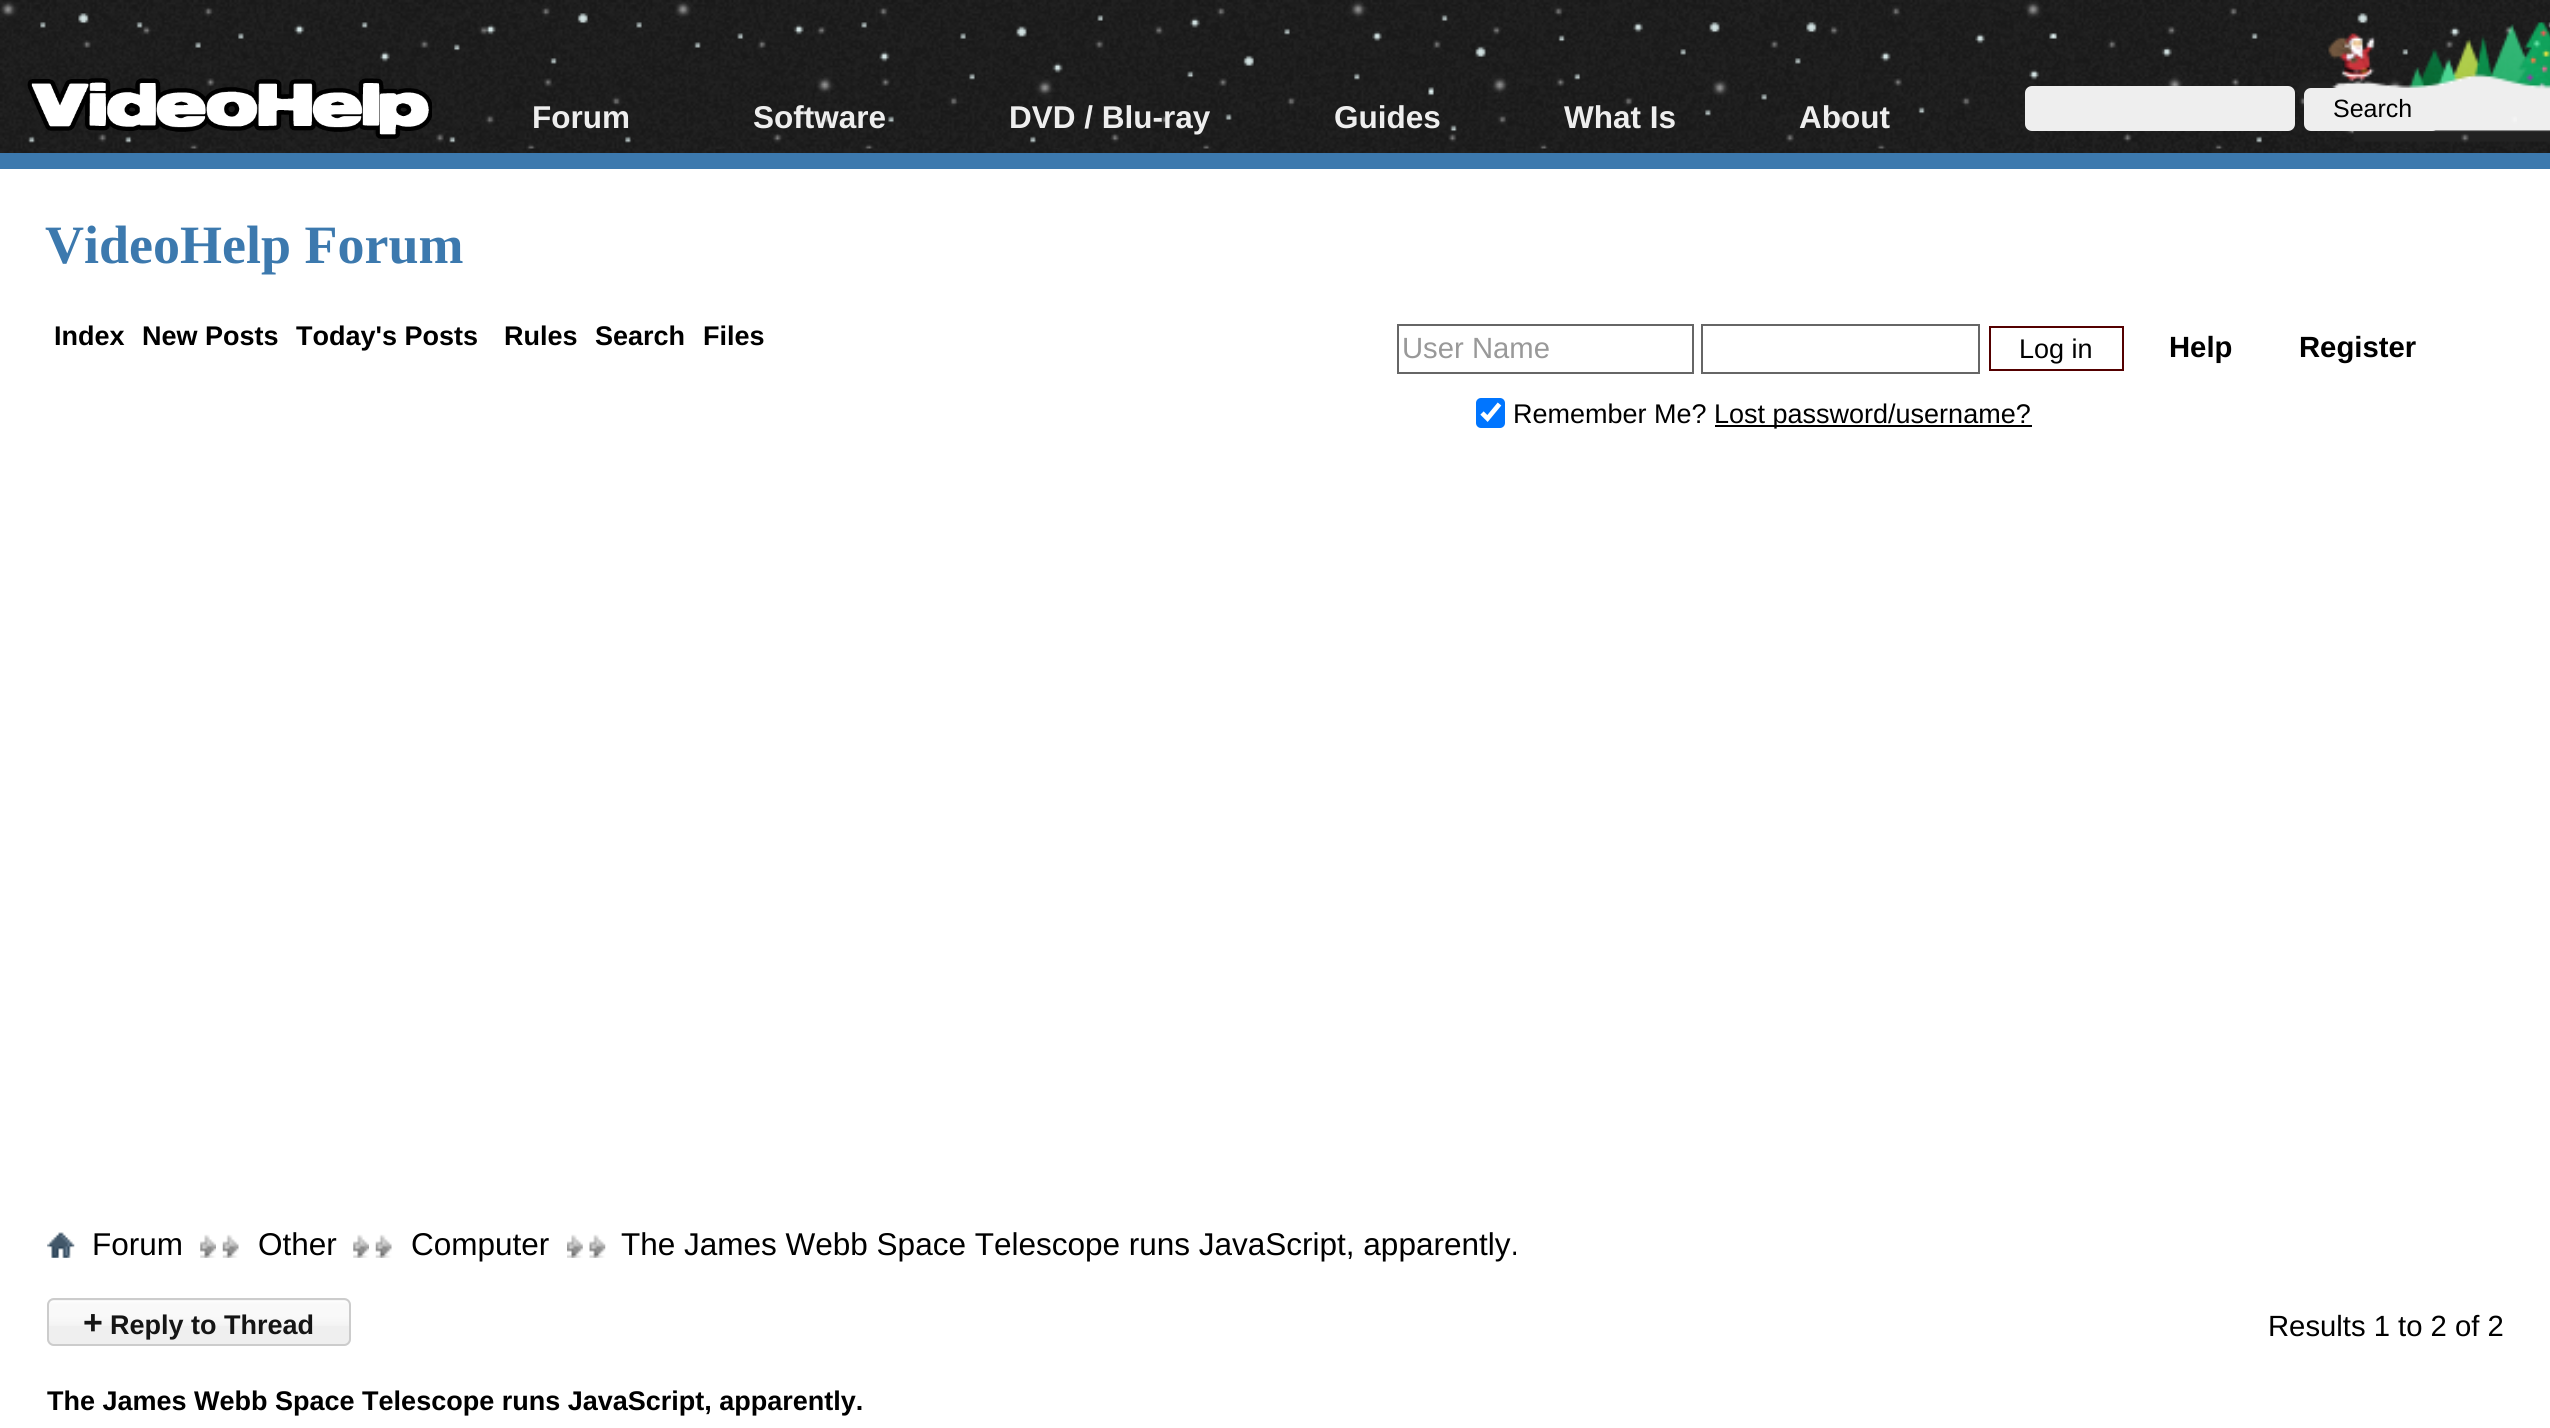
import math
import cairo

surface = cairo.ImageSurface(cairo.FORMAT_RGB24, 2550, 1428)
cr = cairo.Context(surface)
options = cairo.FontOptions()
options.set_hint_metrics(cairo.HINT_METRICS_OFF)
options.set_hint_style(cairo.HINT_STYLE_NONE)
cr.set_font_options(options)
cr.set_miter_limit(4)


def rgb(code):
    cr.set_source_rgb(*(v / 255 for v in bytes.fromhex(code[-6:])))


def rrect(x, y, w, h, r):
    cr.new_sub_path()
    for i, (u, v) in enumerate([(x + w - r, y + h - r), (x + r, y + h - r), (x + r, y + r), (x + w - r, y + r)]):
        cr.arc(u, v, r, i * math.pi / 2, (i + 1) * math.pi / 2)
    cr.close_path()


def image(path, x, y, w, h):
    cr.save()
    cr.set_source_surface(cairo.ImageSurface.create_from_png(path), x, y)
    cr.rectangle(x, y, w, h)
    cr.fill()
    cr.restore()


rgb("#222222")
cr.paint()
image("img/2.png", 0, 0, 2550, 153)
image("img/1.png", 0, 1, 2517, 148)
rgb("#3c79ae")
cr.rectangle(0, 153, 2550, 16)
cr.fill()
image("img/3.png", 27, 78, 405, 61)
rgb("#eeeeee")
rrect(2025, 86, 270, 45, 7)
cr.fill()
rrect(2304, 88, 135, 43, 7)
cr.fill()
rgb("#ffffff")
cr.rectangle(0, 169, 2550, 1259)
cr.fill()
cr.rectangle(1398, 325, 295, 48)
rgb("#666666")
cr.stroke()
cr.rectangle(1702, 325, 277, 48)
cr.stroke()
cr.rectangle(1990, 327, 133, 43)
rgb("#540000")
cr.stroke()
rgb("#0075ff")
rrect(1476, 398, 29, 30, 5)
cr.fill()
cr.new_path()
cr.move_to(1482, 413)
cr.line_to(1487.5, 418.5)
cr.line_to(1499.5, 404)
rgb("#ffffff")
cr.set_line_width(4.7)
cr.stroke()
rgb("#000000")
cr.rectangle(1715, 425, 317, 2)
cr.fill()
image("img/4.png", 47, 1232, 28, 26)
image("img/5.png", 222, 1234, 17, 24)
image("img/6.png", 200, 1234, 16, 24)
image("img/5.png", 375, 1234, 17, 24)
image("img/6.png", 353, 1234, 16, 24)
image("img/7.png", 589, 1234, 17, 24)
image("img/8.png", 567, 1234, 16, 24)
rgb("#efefef")
rrect(47, 1298, 304, 48, 7)
cr.fill()
image("img/9.png", 47, 1300, 304, 26)
rrect(48, 1299, 302, 46, 6)
rgb("#cccccc")
cr.set_line_width(2)
cr.stroke()
cr.select_font_face("Liberation Sans", cairo.FONT_SLANT_NORMAL, cairo.FONT_WEIGHT_BOLD)
cr.set_font_size(31.5)
rgb("#eeeeee")
for x, y, s in [
    (532, 128, "Forum"),
    (753, 128, "Software"),
    (1009, 128, "DVD / Blu-ray"),
    (1334, 128, "Guides"),
    (1564, 128, "What Is"),
    (1799, 128, "About"),
]:
    cr.move_to(x, y)
    cr.show_text(s)
cr.select_font_face("Liberation Sans")
cr.set_font_size(25)
rgb("#000000")
cr.move_to(2333, 117)
cr.show_text("Search")
cr.select_font_face("Liberation Serif", cairo.FONT_SLANT_NORMAL, cairo.FONT_WEIGHT_BOLD)
cr.set_font_size(54)
rgb("#3c79ae")
cr.move_to(45, 263)
cr.show_text("VideoHelp Forum")
cr.select_font_face("Liberation Sans", cairo.FONT_SLANT_NORMAL, cairo.FONT_WEIGHT_BOLD)
cr.set_font_size(27)
rgb("#000000")
for x, y, s in [
    (54, 345, "Index"),
    (142, 345, "New Posts"),
    (296, 345, "Today's Posts"),
    (504, 345, "Rules"),
    (595, 345, "Search"),
    (703, 345, "Files"),
]:
    cr.move_to(x, y)
    cr.show_text(s)
cr.select_font_face("Liberation Sans")
cr.set_font_size(29.25)
rgb("#999999")
cr.move_to(1402, 358)
cr.show_text("User Name")
cr.set_font_size(27)
rgb("#000000")
for x, y, s in [
    (2019, 358, "Log in"),
    (1513, 423, "Remember Me?"),
    (1714, 423, "Lost password/username?"),
]:
    cr.move_to(x, y)
    cr.show_text(s)
cr.select_font_face("Liberation Sans", cairo.FONT_SLANT_NORMAL, cairo.FONT_WEIGHT_BOLD)
cr.set_font_size(29.25)
cr.move_to(2169, 357)
cr.show_text("Help")
cr.move_to(2299, 357)
cr.show_text("Register")
cr.select_font_face("Liberation Sans")
cr.set_font_size(31.5)
for x, y, s in [
    (92, 1255, "Forum"),
    (258, 1255, "Other"),
    (411, 1255, "Computer"),
    (621, 1255, "The James Webb Space Telescope runs JavaScript, apparently."),
]:
    cr.move_to(x, y)
    cr.show_text(s)
cr.select_font_face("Liberation Sans", cairo.FONT_SLANT_NORMAL, cairo.FONT_WEIGHT_BOLD)
cr.set_font_size(34)
rgb("#151515")
cr.move_to(83, 1334)
cr.show_text("+")
cr.set_font_size(27)
cr.move_to(110, 1334)
cr.show_text("Reply to Thread")
cr.select_font_face("Liberation Sans")
cr.set_font_size(29.25)
rgb("#000000")
cr.move_to(2268, 1336)
cr.show_text("Results 1 to 2 of 2")
cr.select_font_face("Liberation Sans", cairo.FONT_SLANT_NORMAL, cairo.FONT_WEIGHT_BOLD)
cr.set_font_size(27)
cr.move_to(47, 1410)
cr.show_text("The James Webb Space Telescope runs JavaScript, apparently.")
surface.write_to_png("page.png")
